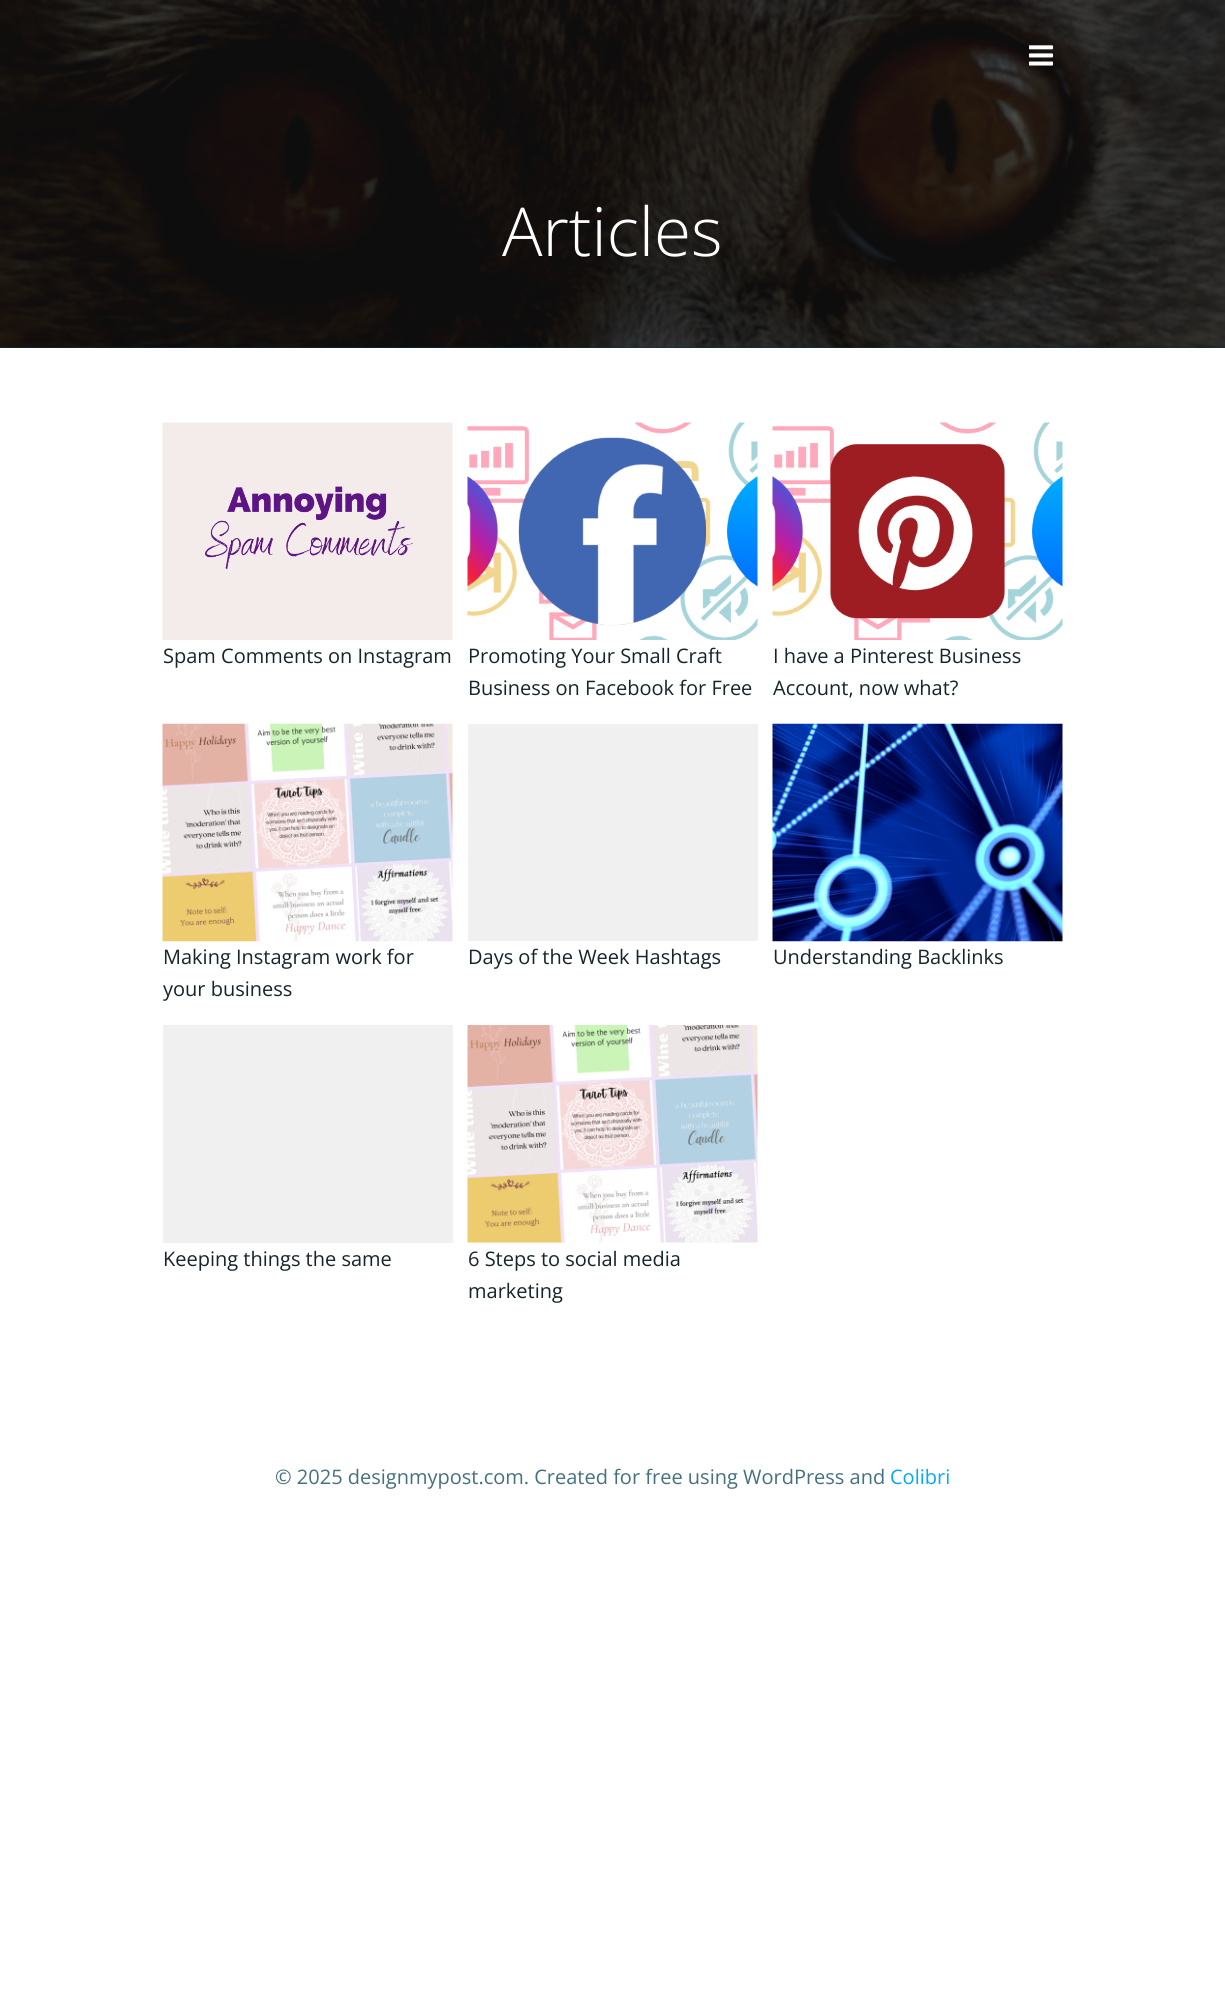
import math
import cairo

surface = cairo.ImageSurface(cairo.FORMAT_RGB24, 1225, 2005)
cr = cairo.Context(surface)
options = cairo.FontOptions()
options.set_hint_metrics(cairo.HINT_METRICS_OFF)
options.set_hint_style(cairo.HINT_STYLE_NONE)
cr.set_font_options(options)
cr.set_miter_limit(4)


def rgb(code):
    cr.set_source_rgb(*(v / 255 for v in bytes.fromhex(code[-6:])))


def image(path, x, y, w, h):
    cr.save()
    cr.set_source_surface(cairo.ImageSurface.create_from_png(path), x, y)
    cr.rectangle(x, y, w, h)
    cr.fill()
    cr.restore()


rgb("#ffffff")
cr.paint()
rgb("#013349")
cr.rectangle(0, 347, 1225, 1)
cr.fill()
image("img/2.png", 0, 0, 1225, 348)
cr.set_source_rgba(0, 0, 0, 0.1)
cr.arc(1041.5, 56.5, 21.5, 0, 2 * math.pi)
cr.fill()
image("img/1.png", 1029, 45, 25, 21)
image("img/3.png", 162, 422, 291, 218)
image("img/4.png", 467, 422, 291, 218)
image("img/5.png", 772, 422, 291, 218)
image("img/6.png", 162, 723, 291, 219)
rgb("#f0f0f0")
cr.rectangle(468, 724, 290, 217)
cr.fill()
image("img/7.png", 772, 723, 291, 219)
cr.rectangle(163, 1025, 290, 218)
cr.fill()
image("img/8.png", 467, 1025, 291, 218)
cr.select_font_face("Open Sans Light")
cr.set_font_size(67.5)
rgb("#ffffff")
cr.move_to(502, 256)
cr.show_text("Articles")
cr.select_font_face("Open Sans")
cr.set_font_size(20)
rgb("#17252a")
for x, y, s in [
    (163, 663, "Spam Comments on Instagram"),
    (468, 663, "Promoting Your Small Craft"),
    (468, 695, "Business on Facebook for Free"),
    (773, 663, "I have a Pinterest Business"),
    (773, 695, "Account, now what?"),
    (163, 964, "Making Instagram work for"),
    (163, 996, "your business"),
    (468, 964, "Days of the Week Hashtags"),
    (773, 964, "Understanding Backlinks"),
    (163, 1266, "Keeping things the same"),
    (468, 1266, "6 Steps to social media"),
    (468, 1298, "marketing"),
]:
    cr.move_to(x, y)
    cr.show_text(s)
rgb("#46707f")
cr.move_to(275, 1484)
cr.show_text("© 2025 designmypost.com. Created for free using WordPress and")
rgb("#03a9f4")
cr.move_to(890, 1484)
cr.show_text("Colibri")
surface.write_to_png("page.png")
